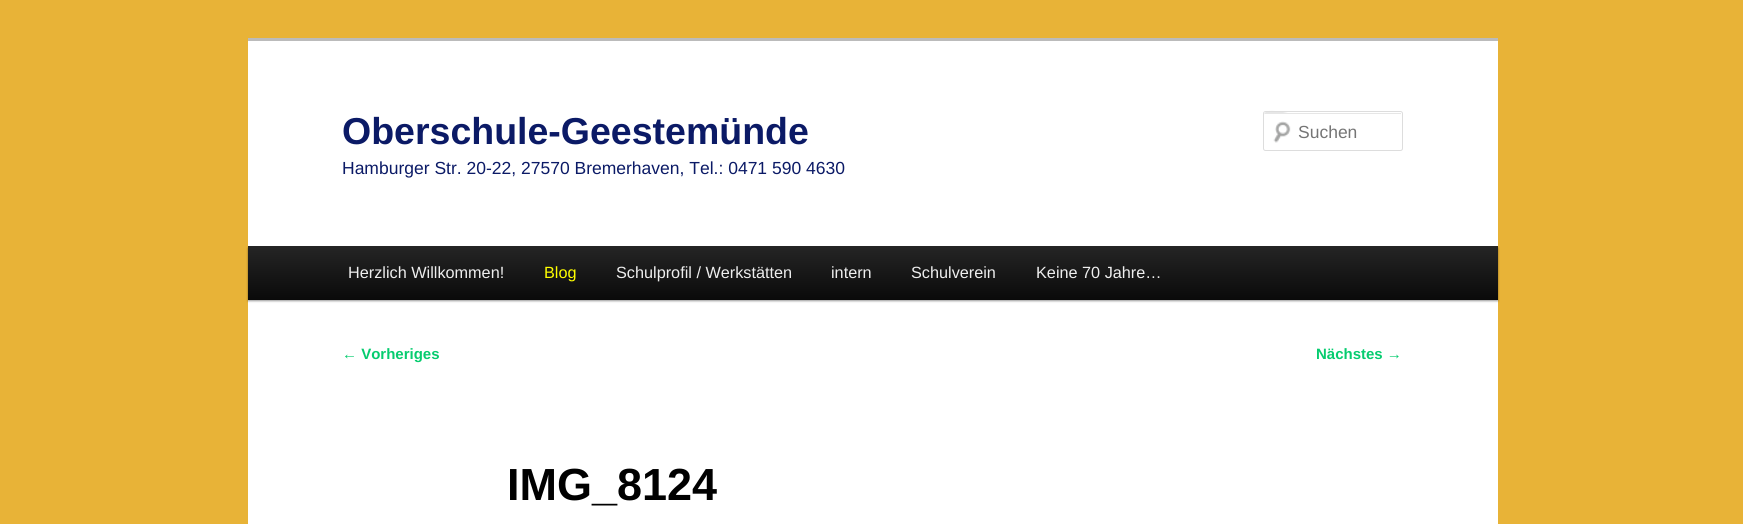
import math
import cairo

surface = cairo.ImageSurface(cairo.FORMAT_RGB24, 1743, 524)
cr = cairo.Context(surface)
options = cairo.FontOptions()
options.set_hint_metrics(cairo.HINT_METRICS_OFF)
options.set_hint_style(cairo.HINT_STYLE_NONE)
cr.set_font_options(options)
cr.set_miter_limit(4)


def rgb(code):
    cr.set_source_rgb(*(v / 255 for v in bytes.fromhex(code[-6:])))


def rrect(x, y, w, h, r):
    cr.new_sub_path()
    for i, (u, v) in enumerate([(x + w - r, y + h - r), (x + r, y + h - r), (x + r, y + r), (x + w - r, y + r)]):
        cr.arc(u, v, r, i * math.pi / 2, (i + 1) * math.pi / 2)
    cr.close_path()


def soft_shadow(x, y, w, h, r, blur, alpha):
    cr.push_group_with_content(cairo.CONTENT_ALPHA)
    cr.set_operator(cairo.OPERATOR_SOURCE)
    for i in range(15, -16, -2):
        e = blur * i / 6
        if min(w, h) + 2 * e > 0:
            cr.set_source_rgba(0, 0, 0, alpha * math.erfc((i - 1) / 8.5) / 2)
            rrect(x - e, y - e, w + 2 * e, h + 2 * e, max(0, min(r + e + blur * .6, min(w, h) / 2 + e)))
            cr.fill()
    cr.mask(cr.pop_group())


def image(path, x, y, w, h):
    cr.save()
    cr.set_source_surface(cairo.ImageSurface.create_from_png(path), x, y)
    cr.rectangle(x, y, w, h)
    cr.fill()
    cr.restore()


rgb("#e8b337")
cr.paint()
rgb("#ffffff")
cr.rectangle(248, 41, 1250, 483)
cr.fill()
rgb("#bbbbbb")
cr.rectangle(248, 38, 1250, 3)
cr.fill()
image("img/1.png", 1273, 121, 18, 22)
rgb("#e6e6e6")
cr.new_path()
cr.move_to(1265, 114)
cr.line_to(1400, 114)
cr.curve_to(1401, 114, 1401, 114, 1401, 115)
cr.line_to(1401, 113)
cr.line_to(1288, 113)
cr.curve_to(1287, 113, 1264, 107, 1264, 115)
cr.curve_to(1264, 114, 1264, 114, 1265, 114)
cr.close_path()
cr.fill()
rrect(1263.5, 111.5, 139, 39, 2)
rgb("#dddddd")
cr.set_line_width(1)
cr.stroke()
rgb("#000000")
soft_shadow(248, 248, 1250, 53, 0, 1, 0.4)
gradient = cairo.LinearGradient(873, 246, 873, 300)
gradient.add_color_stop_rgba(0, 0.145, 0.145, 0.145, 1)
gradient.add_color_stop_rgba(1, 0.039, 0.039, 0.039, 1)
cr.set_source(gradient)
cr.rectangle(248, 246, 1250, 54)
cr.fill()
cr.select_font_face("Liberation Sans", cairo.FONT_SLANT_NORMAL, cairo.FONT_WEIGHT_BOLD)
cr.set_font_size(37.5)
rgb("#0b1a66")
cr.move_to(342, 144)
cr.show_text("Oberschule-Geestemünde")
cr.select_font_face("Liberation Sans")
cr.set_font_size(17.5)
cr.move_to(342, 174)
cr.show_text("Hamburger Str. 20-22, 27570 Bremerhaven, Tel.: 0471 590 4630")
rgb("#757575")
cr.move_to(1298, 138)
cr.show_text("Suchen")
cr.set_font_size(16.25)
rgb("#eeeeee")
cr.move_to(348, 278)
cr.show_text("Herzlich Willkommen!")
rgb("#ffff00")
cr.move_to(544, 278)
cr.show_text("Blog")
rgb("#eeeeee")
for x, y, s in [
    (616, 278, "Schulprofil / Werkstätten"),
    (831, 278, "intern"),
    (911, 278, "Schulverein"),
    (1036, 278, "Keine 70 Jahre…"),
]:
    cr.move_to(x, y)
    cr.show_text(s)
cr.select_font_face("Liberation Sans", cairo.FONT_SLANT_NORMAL, cairo.FONT_WEIGHT_BOLD)
cr.set_font_size(15)
rgb("#06cc6f")
cr.move_to(342, 359)
cr.show_text("← Vorheriges")
cr.move_to(1316, 359)
cr.show_text("Nächstes →")
cr.set_font_size(45)
rgb("#000000")
cr.move_to(507, 500)
cr.show_text("IMG_8124")
surface.write_to_png("page.png")
